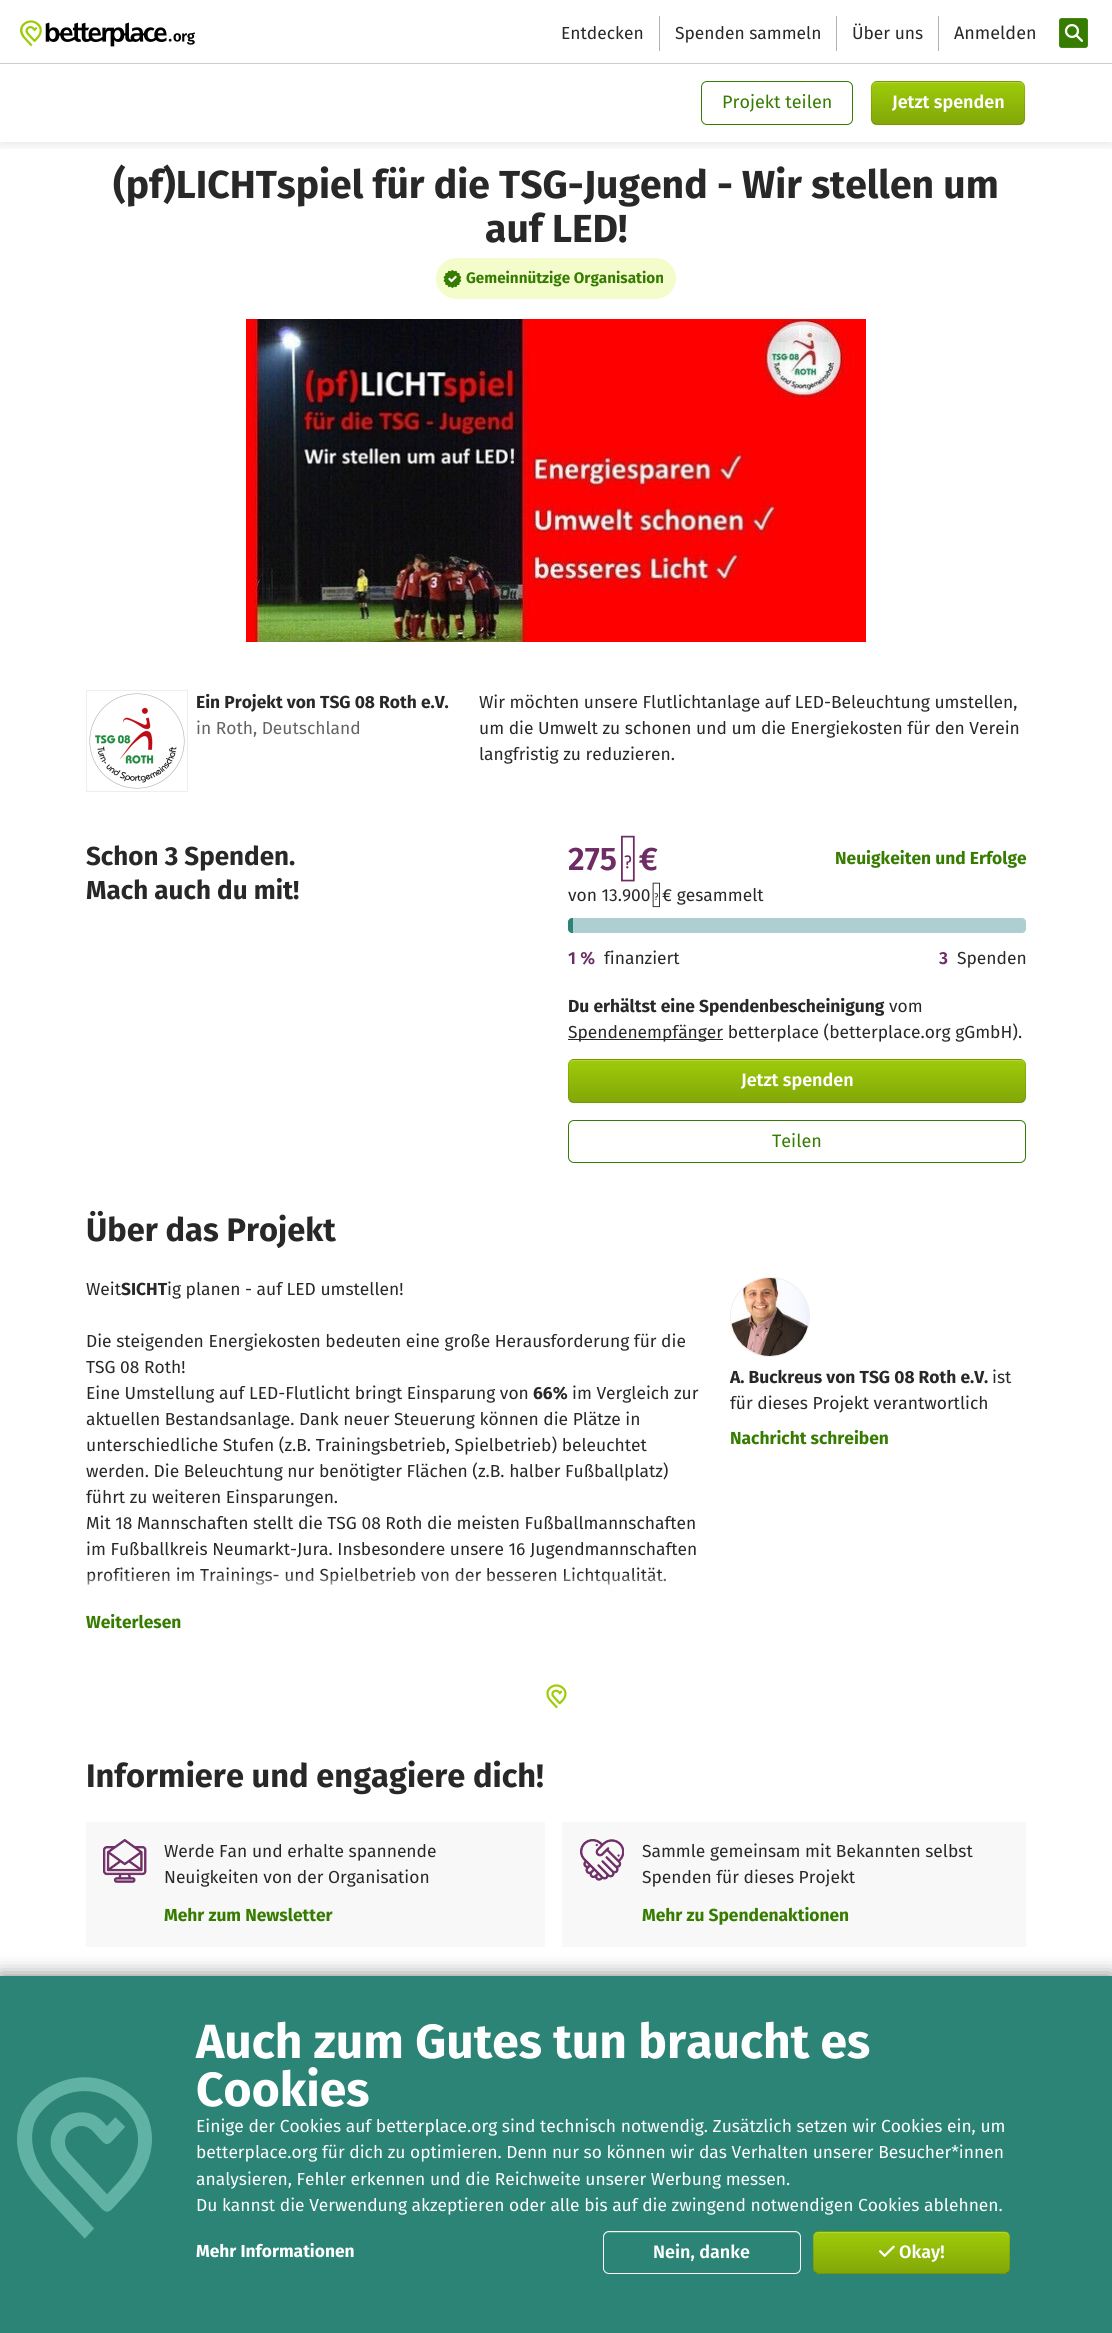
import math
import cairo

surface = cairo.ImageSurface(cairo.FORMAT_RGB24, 1112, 2333)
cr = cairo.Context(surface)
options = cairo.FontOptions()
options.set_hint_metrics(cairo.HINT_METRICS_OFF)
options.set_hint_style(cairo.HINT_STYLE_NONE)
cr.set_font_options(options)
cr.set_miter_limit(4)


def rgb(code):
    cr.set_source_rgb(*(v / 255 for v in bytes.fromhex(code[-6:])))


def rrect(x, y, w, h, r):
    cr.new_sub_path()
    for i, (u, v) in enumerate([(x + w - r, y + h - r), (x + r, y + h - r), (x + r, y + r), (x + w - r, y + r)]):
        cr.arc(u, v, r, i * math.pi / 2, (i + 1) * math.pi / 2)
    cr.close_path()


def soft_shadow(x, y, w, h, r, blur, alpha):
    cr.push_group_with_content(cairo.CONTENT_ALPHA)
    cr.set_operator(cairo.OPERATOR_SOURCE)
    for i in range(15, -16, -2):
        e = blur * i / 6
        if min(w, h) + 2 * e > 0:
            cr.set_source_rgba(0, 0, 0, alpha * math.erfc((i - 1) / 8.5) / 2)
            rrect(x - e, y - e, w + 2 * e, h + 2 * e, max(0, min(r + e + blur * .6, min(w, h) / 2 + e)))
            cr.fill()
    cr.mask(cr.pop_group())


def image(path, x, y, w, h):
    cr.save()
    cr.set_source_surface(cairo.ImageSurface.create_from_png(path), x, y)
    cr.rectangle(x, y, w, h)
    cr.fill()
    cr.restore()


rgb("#ffffff")
cr.paint()
cr.save()
cr.rectangle(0, 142, 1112, 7)
cr.clip()
rgb("#000000")
soft_shadow(0, 68, 1112, 78, 0, 4, 0.08)
cr.restore()
rgb("#cccccc")
cr.rectangle(0, 63, 1112, 1)
cr.fill()
image("img/1.png", 20, 20, 175, 27)
for x, y, w, h, color in [
    (659, 16, 1, 35, "#b3b3b3"),
    (836, 16, 1, 35, "#b3b3b3"),
    (938, 16, 1, 35, "#b3b3b3"),
]:
    rgb(color)
    cr.rectangle(x, y, w, h)
    cr.fill()
rgb("#357c00")
rrect(1059.4, 18.4, 28.2, 29.2, 2.6)
cr.fill_preserve()
cr.set_line_width(0.8)
cr.stroke()
image("img/2.png", 1064, 24, 19, 18)
rrect(701.5, 81.5, 151, 43, 5.5)
cr.set_line_width(1)
cr.stroke()
rgb("#000000")
soft_shadow(871, 82, 154, 44, 6, 1, 0.05)
cr.save()
rrect(871, 81, 154, 44, 6)
cr.clip()
gradient = cairo.LinearGradient(948, 40, 948, 82)
gradient.add_color_stop_rgba(0, 0.62, 0.796, 0.039, 1)
gradient.add_color_stop_rgba(1, 0.51, 0.655, 0.031, 1)
cr.set_source(gradient)
cr.rectangle(871, 81, 154, 1)
cr.fill()
gradient = cairo.LinearGradient(948, 82, 948, 124)
gradient.add_color_stop_rgba(0, 0.62, 0.796, 0.039, 1)
gradient.add_color_stop_rgba(1, 0.51, 0.655, 0.031, 1)
cr.set_source(gradient)
cr.rectangle(871, 82, 154, 42)
cr.fill()
gradient = cairo.LinearGradient(948, 124, 948, 166)
gradient.add_color_stop_rgba(0, 0.62, 0.796, 0.039, 1)
gradient.add_color_stop_rgba(1, 0.51, 0.655, 0.031, 1)
cr.set_source(gradient)
cr.rectangle(871, 124, 154, 1)
cr.fill()
cr.restore()
rgb("#b1d53b")
cr.new_path()
cr.move_to(877, 83)
cr.line_to(1019, 83)
cr.curve_to(1022, 83, 1024, 85, 1024, 88)
cr.line_to(1024, 87)
cr.curve_to(1024, 84, 1022, 82, 1019, 82)
cr.line_to(877, 82)
cr.curve_to(874, 82, 872, 84, 872, 87)
cr.line_to(872, 88)
cr.curve_to(872, 85, 874, 83, 877, 83)
cr.close_path()
cr.fill()
cr.new_path()
cr.move_to(1023, 123)
cr.curve_to(1022, 124, 1020.5, 124.5, 1019, 124.5)
cr.line_to(877, 124.5)
cr.curve_to(875.5, 124.5, 874, 124, 873, 123)
cr.set_source_rgba(0, 0, 0, 0.25)
cr.stroke()
cr.new_path()
cr.move_to(873, 123)
cr.curve_to(870, 119.5, 871.5, 112, 871.5, 108.5)
cr.curve_to(871.5, 76.5, 866.5, 81.5, 900.5, 81.5)
cr.line_to(995.5, 81.5)
cr.curve_to(1029.5, 81.5, 1024.5, 76.5, 1024.5, 108.5)
cr.curve_to(1024.5, 112, 1026, 119.5, 1023, 123)
cr.set_source_rgba(0, 0, 0, 0.1)
cr.stroke()
rgb("#f5fccc")
rrect(436, 258, 240, 41, 20.5)
cr.fill()
image("img/3.png", 443, 270, 19, 18)
image("img/4.png", 246, 319, 620, 323)
cr.rectangle(86.5, 690.5, 101, 101)
rgb("#eeeeee")
cr.stroke()
image("img/5.png", 89, 693, 96, 96)
rgb("#aecfd1")
rrect(568, 918, 458, 15, 4)
cr.fill()
rgb("#2b8475")
cr.new_path()
cr.move_to(572, 918)
cr.line_to(573, 918)
cr.line_to(573, 933)
cr.line_to(572, 933)
cr.curve_to(570, 933, 568, 931, 568, 929)
cr.line_to(568, 922)
cr.curve_to(568, 920, 570, 918, 572, 918)
cr.close_path()
cr.fill()
rgb("#282828")
cr.rectangle(568, 1039, 155, 1)
cr.fill()
rgb("#000000")
soft_shadow(568, 1060, 458, 44, 6, 1, 0.05)
cr.save()
rrect(568, 1059, 458, 44, 6)
cr.clip()
gradient = cairo.LinearGradient(797, 1018, 797, 1060)
gradient.add_color_stop_rgba(0, 0.62, 0.796, 0.039, 1)
gradient.add_color_stop_rgba(1, 0.51, 0.655, 0.031, 1)
cr.set_source(gradient)
cr.rectangle(568, 1059, 458, 1)
cr.fill()
gradient = cairo.LinearGradient(797, 1060, 797, 1102)
gradient.add_color_stop_rgba(0, 0.62, 0.796, 0.039, 1)
gradient.add_color_stop_rgba(1, 0.51, 0.655, 0.031, 1)
cr.set_source(gradient)
cr.rectangle(568, 1060, 458, 42)
cr.fill()
gradient = cairo.LinearGradient(797, 1102, 797, 1144)
gradient.add_color_stop_rgba(0, 0.62, 0.796, 0.039, 1)
gradient.add_color_stop_rgba(1, 0.51, 0.655, 0.031, 1)
cr.set_source(gradient)
cr.rectangle(568, 1102, 458, 1)
cr.fill()
cr.restore()
rgb("#b1d53b")
cr.new_path()
cr.move_to(574, 1061)
cr.line_to(1020, 1061)
cr.curve_to(1023, 1061, 1025, 1063, 1025, 1066)
cr.curve_to(1025, 1063, 1023, 1060, 1020, 1060)
cr.line_to(574, 1060)
cr.curve_to(571, 1060, 569, 1063, 569, 1066)
cr.curve_to(569, 1063, 571, 1061, 574, 1061)
cr.close_path()
cr.fill()
cr.new_path()
cr.move_to(1024, 1101)
cr.curve_to(1023, 1102, 1021.5, 1102.5, 1020, 1102.5)
cr.line_to(574, 1102.5)
cr.curve_to(572.5, 1102.5, 571, 1102, 570, 1101)
cr.set_source_rgba(0, 0, 0, 0.25)
cr.stroke()
cr.new_path()
cr.move_to(570, 1101)
cr.curve_to(569, 1100, 568.5, 1098.5, 568.5, 1097)
cr.line_to(568.5, 1065)
cr.curve_to(568.5, 1063.5, 569, 1062, 570, 1061)
cr.curve_to(571, 1060, 572.5, 1059.5, 574, 1059.5)
cr.line_to(1020, 1059.5)
cr.curve_to(1021.5, 1059.5, 1023, 1060, 1024, 1061)
cr.curve_to(1025, 1062, 1025.5, 1063.5, 1025.5, 1065)
cr.line_to(1025.5, 1097)
cr.curve_to(1025.5, 1098.5, 1025, 1100, 1024, 1101)
cr.set_source_rgba(0, 0, 0, 0.1)
cr.stroke()
rrect(568.5, 1120.5, 457, 42, 5.5)
rgb("#357c00")
cr.stroke()
cr.arc(770, 1317, 39.5, 0, 2 * math.pi)
rgb("#eeeeee")
cr.stroke()
image("img/6.png", 731, 1278, 78, 78)
image("img/7.png", 546, 1684, 21, 25)
rgb("#f8f8f8")
cr.rectangle(86, 1822, 459, 125)
cr.fill()
image("img/8.png", 103, 1839, 44, 44)
cr.rectangle(562, 1822, 464, 125)
cr.fill()
image("img/9.png", 580, 1839, 44, 42)
rgb("#000000")
soft_shadow(0, 1976, 1112, 357, 0, 10, 0.5)
rgb("#2b8475")
cr.rectangle(0, 1976, 1112, 357)
cr.fill()
image("img/10.png", 17, 2077, 135, 162)
rgb("#559d91")
cr.new_path()
cr.move_to(609, 2233)
cr.line_to(795, 2233)
cr.curve_to(798, 2233, 800, 2235, 800, 2238)
cr.line_to(800, 2237)
cr.curve_to(800, 2234, 798, 2232, 795, 2232)
cr.line_to(609, 2232)
cr.curve_to(606, 2232, 604, 2234, 604, 2237)
cr.line_to(604, 2238)
cr.curve_to(604, 2235, 606, 2233, 609, 2233)
cr.close_path()
cr.fill()
rrect(603.5, 2231.5, 197, 42, 5.5)
rgb("#ffffff")
cr.stroke()
cr.save()
rrect(813, 2231, 197, 43, 6)
cr.clip()
gradient = cairo.LinearGradient(912, 2191, 912, 2232)
gradient.add_color_stop_rgba(0, 0.62, 0.796, 0.039, 1)
gradient.add_color_stop_rgba(1, 0.51, 0.655, 0.031, 1)
cr.set_source(gradient)
cr.rectangle(813, 2231, 197, 1)
cr.fill()
gradient = cairo.LinearGradient(912, 2232, 912, 2273)
gradient.add_color_stop_rgba(0, 0.62, 0.796, 0.039, 1)
gradient.add_color_stop_rgba(1, 0.51, 0.655, 0.031, 1)
cr.set_source(gradient)
cr.rectangle(813, 2232, 197, 41)
cr.fill()
gradient = cairo.LinearGradient(912, 2273, 912, 2314)
gradient.add_color_stop_rgba(0, 0.62, 0.796, 0.039, 1)
gradient.add_color_stop_rgba(1, 0.51, 0.655, 0.031, 1)
cr.set_source(gradient)
cr.rectangle(813, 2273, 197, 1)
cr.fill()
cr.restore()
rgb("#b1d53b")
cr.new_path()
cr.move_to(819, 2233)
cr.line_to(1004, 2233)
cr.curve_to(1007, 2233, 1009, 2235, 1009, 2238)
cr.line_to(1009, 2237)
cr.curve_to(1009, 2234, 1007, 2232, 1004, 2232)
cr.line_to(819, 2232)
cr.curve_to(816, 2232, 814, 2234, 814, 2237)
cr.line_to(814, 2238)
cr.curve_to(814, 2235, 816, 2233, 819, 2233)
cr.close_path()
cr.fill()
cr.new_path()
cr.move_to(1008, 2272)
cr.curve_to(1007, 2273, 1005.5, 2273.5, 1004, 2273.5)
cr.line_to(819, 2273.5)
cr.curve_to(817.5, 2273.5, 816, 2273, 815, 2272)
cr.set_source_rgba(0, 0, 0, 0.25)
cr.stroke()
cr.new_path()
cr.move_to(815, 2272)
cr.curve_to(814, 2271, 813.5, 2269.5, 813.5, 2268)
cr.line_to(813.5, 2237)
cr.curve_to(813.5, 2235.5, 814, 2234, 815, 2233)
cr.curve_to(816, 2232, 817.5, 2231.5, 819, 2231.5)
cr.line_to(1004, 2231.5)
cr.curve_to(1005.5, 2231.5, 1007, 2232, 1008, 2233)
cr.curve_to(1009, 2234, 1009.5, 2235.5, 1009.5, 2237)
cr.line_to(1009.5, 2268)
cr.curve_to(1009.5, 2269.5, 1009, 2271, 1008, 2272)
cr.set_source_rgba(0, 0, 0, 0.1)
cr.stroke()
image("img/11.png", 879, 2245, 16, 12)
cr.select_font_face("Fira Sans")
cr.set_font_size(17.4)
rgb("#282828")
for x, y, s in [
    (561, 39, "Entdecken"),
    (675, 39, "Spenden sammeln"),
    (852, 39, "Über uns"),
]:
    cr.move_to(x, y)
    cr.show_text(s)
cr.set_font_size(18)
cr.move_to(954, 39)
cr.show_text("Anmelden")
rgb("#357c00")
cr.move_to(722, 108)
cr.show_text("Projekt teilen")
cr.select_font_face("Fira Sans SemiBold")
rgb("#ffffff")
cr.move_to(892, 108)
cr.show_text("Jetzt spenden")
cr.select_font_face("Fira Sans", cairo.FONT_SLANT_NORMAL, cairo.FONT_WEIGHT_BOLD)
cr.set_font_size(39.1)
rgb("#282828")
cr.move_to(113, 198)
cr.show_text("(pf)LICHTspiel für die TSG-Jugend - Wir stellen um")
cr.move_to(485, 242)
cr.show_text("auf LED!")
cr.set_font_size(15.25)
rgb("#357c00")
cr.move_to(466, 283)
cr.show_text("Gemeinnützige Organisation")
cr.set_font_size(17.4)
rgb("#282828")
cr.move_to(196, 708)
cr.show_text("Ein Projekt von TSG 08 Roth e.V.")
cr.select_font_face("Fira Sans")
rgb("#636363")
cr.move_to(196, 734)
cr.show_text("in Roth, Deutschland")
rgb("#282828")
for x, y, s in [
    (479, 708, "Wir möchten unsere Flutlichtanlage auf LED-Beleuchtung umstellen,"),
    (479, 734, "um die Umwelt zu schonen und um die Energiekosten für den Verein"),
    (479, 760, "langfristig zu reduzieren."),
]:
    cr.move_to(x, y)
    cr.show_text(s)
cr.select_font_face("Fira Sans", cairo.FONT_SLANT_NORMAL, cairo.FONT_WEIGHT_BOLD)
cr.set_font_size(26)
cr.move_to(86, 865)
cr.show_text("Schon 3 Spenden.")
cr.move_to(86, 899)
cr.show_text("Mach auch du mit!")
cr.select_font_face("Fira Sans SemiBold")
cr.set_font_size(32.6)
rgb("#6d2c64")
cr.move_to(568, 870)
cr.show_text("275 €")
cr.select_font_face("Fira Sans")
cr.set_font_size(17.4)
rgb("#282828")
cr.move_to(568, 901)
cr.show_text("von 13.900 € gesammelt")
cr.select_font_face("Fira Sans", cairo.FONT_SLANT_NORMAL, cairo.FONT_WEIGHT_BOLD)
rgb("#357c00")
cr.move_to(835, 864)
cr.show_text("Neuigkeiten und Erfolge")
cr.select_font_face("Fira Sans SemiBold")
rgb("#6d2c64")
cr.move_to(568, 964)
cr.show_text("1 %")
cr.select_font_face("Fira Sans")
rgb("#282828")
cr.move_to(604, 964)
cr.show_text("finanziert")
cr.select_font_face("Fira Sans SemiBold")
rgb("#6d2c64")
cr.move_to(939, 964)
cr.show_text("3")
cr.select_font_face("Fira Sans")
rgb("#282828")
cr.move_to(957, 964)
cr.show_text("Spenden")
cr.select_font_face("Fira Sans", cairo.FONT_SLANT_NORMAL, cairo.FONT_WEIGHT_BOLD)
cr.move_to(568, 1012)
cr.show_text("Du erhältst eine Spendenbescheinigung")
cr.select_font_face("Fira Sans")
cr.move_to(889, 1012)
cr.show_text("vom")
cr.move_to(568, 1038)
cr.show_text("Spendenempfänger betterplace (betterplace.org gGmbH).")
cr.select_font_face("Fira Sans SemiBold")
cr.set_font_size(18)
rgb("#ffffff")
cr.move_to(741, 1086)
cr.show_text("Jetzt spenden")
cr.select_font_face("Fira Sans")
rgb("#357c00")
cr.move_to(772, 1147)
cr.show_text("Teilen")
cr.select_font_face("Fira Sans", cairo.FONT_SLANT_NORMAL, cairo.FONT_WEIGHT_BOLD)
cr.set_font_size(32.6)
rgb("#282828")
cr.move_to(86, 1241)
cr.show_text("Über das Projekt")
cr.select_font_face("Fira Sans")
cr.set_font_size(17.4)
cr.move_to(86, 1295)
cr.show_text("Weit")
cr.select_font_face("Fira Sans", cairo.FONT_SLANT_NORMAL, cairo.FONT_WEIGHT_BOLD)
cr.move_to(121, 1295)
cr.show_text("SICHT")
cr.select_font_face("Fira Sans")
for x, y, s in [
    (167, 1295, "ig planen - auf LED umstellen!"),
    (86, 1347, "Die steigenden Energiekosten bedeuten eine große Herausforderung für die"),
    (86, 1373, "TSG 08 Roth!"),
    (86, 1399, "Eine Umstellung auf LED-Flutlicht bringt Einsparung von"),
]:
    cr.move_to(x, y)
    cr.show_text(s)
cr.select_font_face("Fira Sans", cairo.FONT_SLANT_NORMAL, cairo.FONT_WEIGHT_BOLD)
cr.move_to(533, 1399)
cr.show_text("66%")
cr.select_font_face("Fira Sans")
for x, y, s in [
    (572, 1399, "im Vergleich zur"),
    (86, 1425, "aktuellen Bestandsanlage. Dank neuer Steuerung können die Plätze in"),
    (86, 1451, "unterschiedliche Stufen (z.B. Trainingsbetrieb, Spielbetrieb) beleuchtet"),
    (86, 1477, "werden. Die Beleuchtung nur benötigter Flächen (z.B. halber Fußballplatz)"),
    (86, 1503, "führt zu weiteren Einsparungen."),
    (86, 1529, "Mit 18 Mannschaften stellt die TSG 08 Roth die meisten Fußballmannschaften"),
    (86, 1555, "im Fußballkreis Neumarkt-Jura. Insbesondere unsere 16 Jugendmannschaften"),
    (86, 1581, "profitieren im Trainings- und Spielbetrieb von der besseren Lichtqualität."),
]:
    cr.move_to(x, y)
    cr.show_text(s)
gradient = cairo.LinearGradient(395, 1574, 395, 1597)
gradient.add_color_stop_rgba(0, 1, 1, 1, 0)
gradient.add_color_stop_rgba(0.9, 1, 1, 1, 1)
cr.set_source(gradient)
cr.rectangle(87, 1574, 579, 11)
cr.fill()
cr.select_font_face("Fira Sans", cairo.FONT_SLANT_NORMAL, cairo.FONT_WEIGHT_BOLD)
rgb("#357c00")
cr.move_to(86, 1628)
cr.show_text("Weiterlesen")
rgb("#282828")
cr.move_to(730, 1383)
cr.show_text("A. Buckreus von TSG 08 Roth e.V.")
cr.select_font_face("Fira Sans")
cr.move_to(992, 1383)
cr.show_text("ist")
cr.move_to(730, 1409)
cr.show_text("für dieses Projekt verantwortlich")
cr.select_font_face("Fira Sans", cairo.FONT_SLANT_NORMAL, cairo.FONT_WEIGHT_BOLD)
rgb("#357c00")
cr.move_to(730, 1444)
cr.show_text("Nachricht schreiben")
cr.set_font_size(32.6)
rgb("#282828")
cr.move_to(86, 1787)
cr.show_text("Informiere und engagiere dich!")
cr.select_font_face("Fira Sans")
cr.set_font_size(17.4)
cr.move_to(164, 1857)
cr.show_text("Werde Fan und erhalte spannende")
cr.move_to(164, 1883)
cr.show_text("Neuigkeiten von der Organisation")
cr.select_font_face("Fira Sans", cairo.FONT_SLANT_NORMAL, cairo.FONT_WEIGHT_BOLD)
rgb("#357c00")
cr.move_to(164, 1921)
cr.show_text("Mehr zum Newsletter")
cr.select_font_face("Fira Sans")
rgb("#282828")
cr.move_to(642, 1857)
cr.show_text("Sammle gemeinsam mit Bekannten selbst")
cr.move_to(642, 1883)
cr.show_text("Spenden für dieses Projekt")
cr.select_font_face("Fira Sans", cairo.FONT_SLANT_NORMAL, cairo.FONT_WEIGHT_BOLD)
rgb("#357c00")
cr.move_to(642, 1921)
cr.show_text("Mehr zu Spendenaktionen")
cr.set_font_size(48)
rgb("#ffffff")
cr.move_to(196, 2058)
cr.show_text("Auch zum Gutes tun braucht es")
cr.move_to(196, 2106)
cr.show_text("Cookies")
cr.select_font_face("Fira Sans")
cr.set_font_size(17.4)
for x, y, s in [
    (196, 2132, "Einige der Cookies auf betterplace.org sind technisch notwendig. Zusätzlich setzen wir Cookies ein, um"),
    (196, 2158, "betterplace.org für dich zu optimieren. Denn nur so können wir das Verhalten unserer Besucher*innen"),
    (196, 2185, "analysieren, Fehler erkennen und die Reichweite unserer Werbung messen."),
    (196, 2211, "Du kannst die Verwendung akzeptieren oder alle bis auf die zwingend notwendigen Cookies ablehnen."),
]:
    cr.move_to(x, y)
    cr.show_text(s)
cr.select_font_face("Fira Sans", cairo.FONT_SLANT_NORMAL, cairo.FONT_WEIGHT_BOLD)
cr.move_to(196, 2257)
cr.show_text("Mehr Informationen")
cr.select_font_face("Fira Sans SemiBold")
cr.set_font_size(18)
cr.move_to(653, 2258)
cr.show_text("Nein, danke")
cr.move_to(899, 2258)
cr.show_text("Okay!")
surface.write_to_png("page.png")
